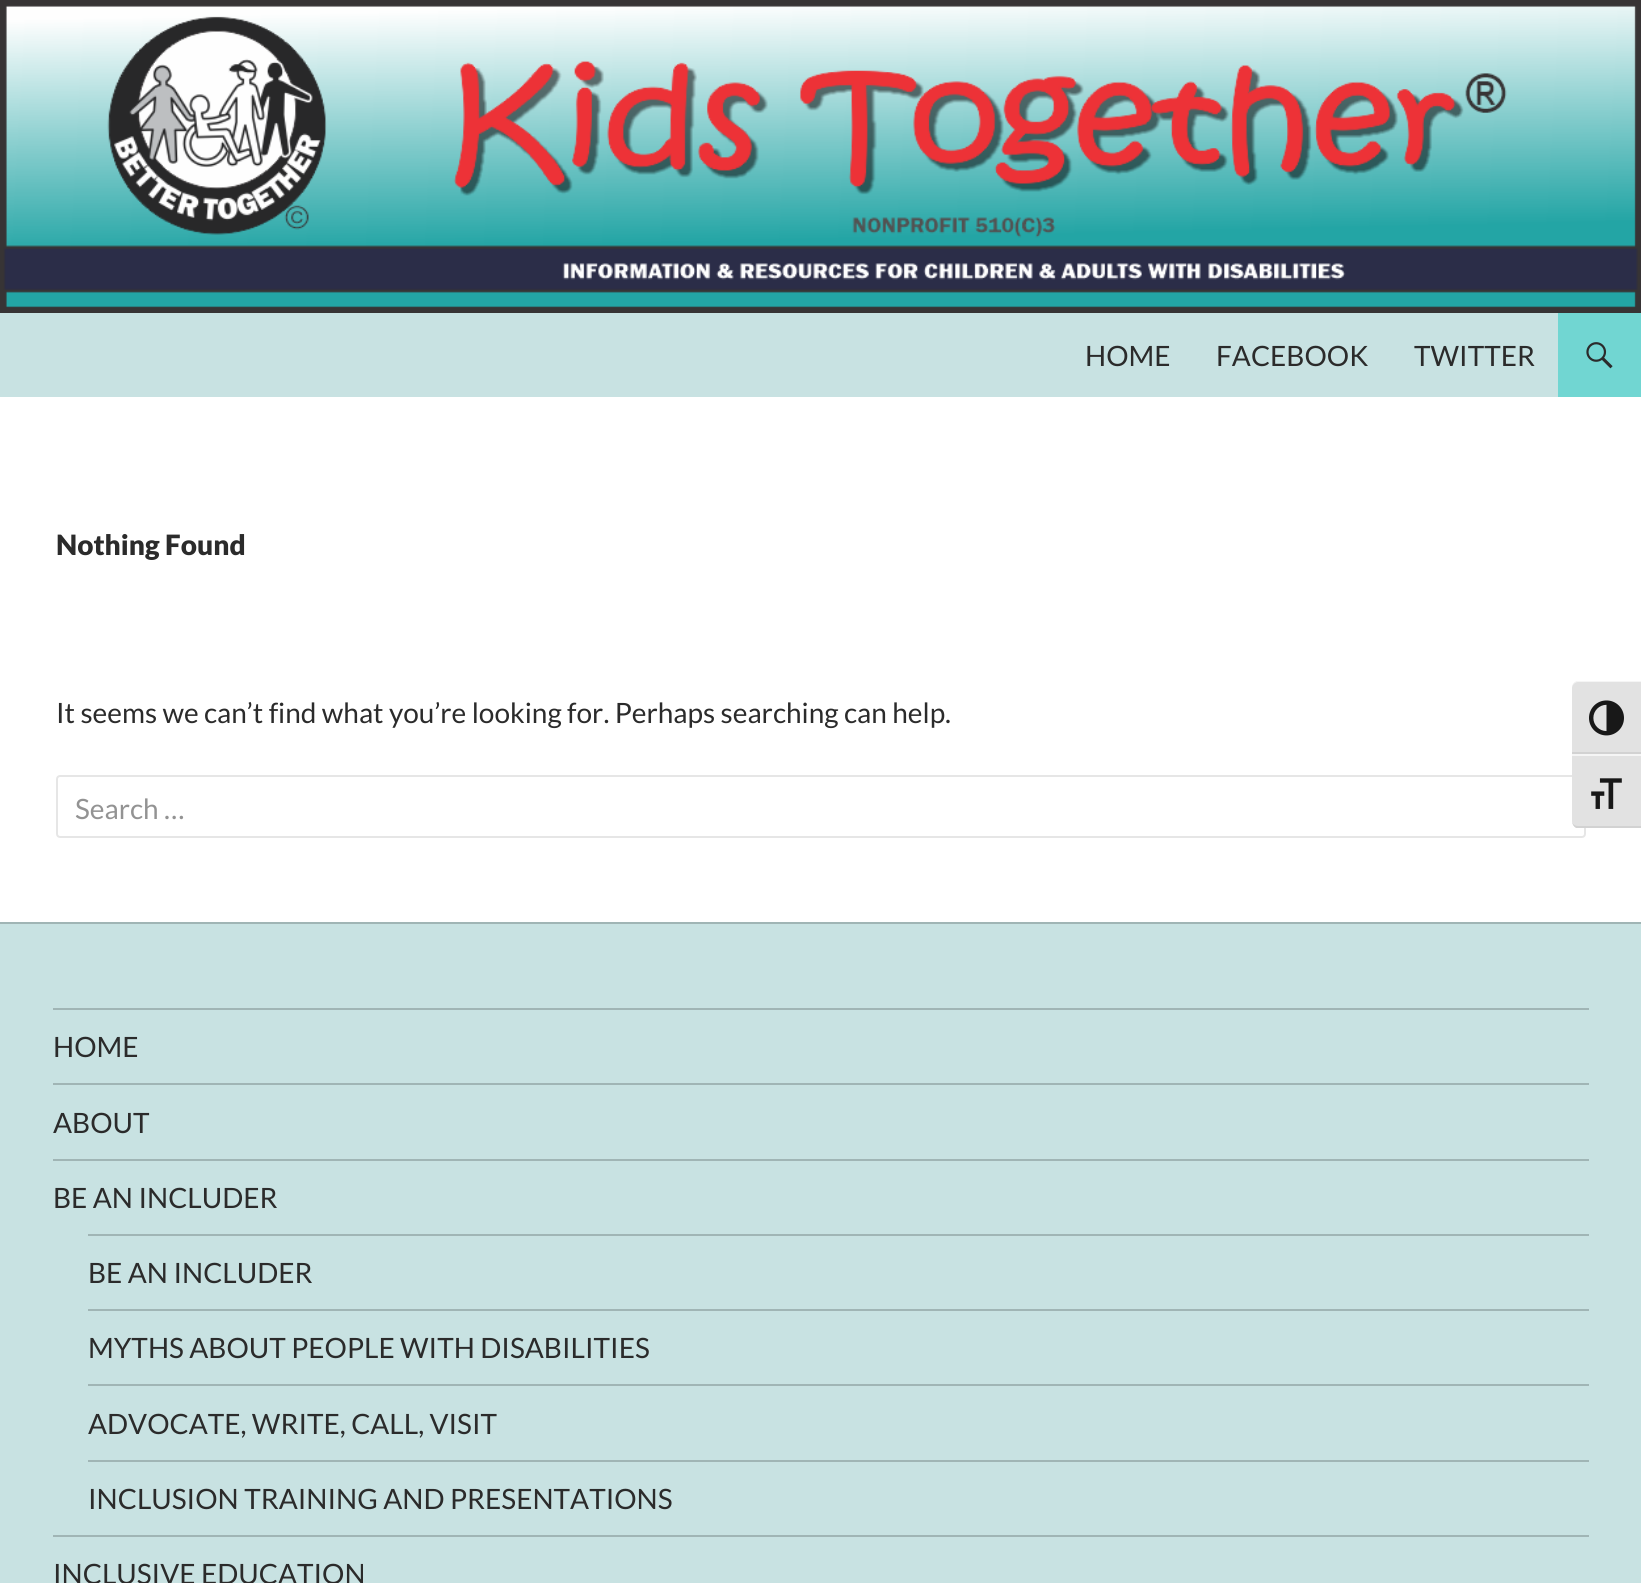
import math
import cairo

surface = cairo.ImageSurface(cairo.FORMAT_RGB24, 1641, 1583)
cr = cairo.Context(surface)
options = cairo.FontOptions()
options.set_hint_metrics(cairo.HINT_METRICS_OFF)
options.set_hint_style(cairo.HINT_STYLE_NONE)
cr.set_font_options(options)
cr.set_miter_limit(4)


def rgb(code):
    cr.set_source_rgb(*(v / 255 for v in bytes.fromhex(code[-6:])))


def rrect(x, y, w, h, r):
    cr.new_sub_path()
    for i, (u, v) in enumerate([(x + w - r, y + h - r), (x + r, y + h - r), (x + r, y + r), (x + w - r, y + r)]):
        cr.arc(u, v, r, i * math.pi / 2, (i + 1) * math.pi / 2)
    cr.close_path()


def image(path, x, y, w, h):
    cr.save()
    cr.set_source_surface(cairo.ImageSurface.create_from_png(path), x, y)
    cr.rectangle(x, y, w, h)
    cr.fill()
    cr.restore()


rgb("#ffffff")
cr.paint()
image("img/1.png", 0, 0, 1641, 313)
rgb("#c8e2e2")
cr.rectangle(0, 313, 1558, 84)
cr.fill()
rgb("#71d6d2")
cr.rectangle(1558, 313, 83, 84)
cr.fill()
image("img/2.png", 1586, 342, 27, 27)
rrect(57, 776, 1528, 61, 3)
rgb("#e6e6e6")
cr.stroke()
for x, y, w, h, color in [
    (0, 924, 1641, 659, "#c8e2e2"),
    (0, 922, 1641, 2, "#a0b5b5"),
    (53, 1008, 1536, 2, "#a0b5b5"),
    (53, 1083, 1536, 2, "#a0b5b5"),
    (53, 1159, 1536, 2, "#a0b5b5"),
    (88, 1234, 1501, 2, "#a0b5b5"),
    (88, 1309, 1501, 2, "#a0b5b5"),
    (88, 1384, 1501, 2, "#a0b5b5"),
    (88, 1460, 1501, 2, "#a0b5b5"),
    (53, 1535, 1536, 2, "#a0b5b5"),
]:
    rgb(color)
    cr.rectangle(x, y, w, h)
    cr.fill()
rgb("#e2e2e2")
cr.new_path()
cr.move_to(1579, 681)
cr.line_to(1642, 681)
cr.line_to(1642, 754)
cr.line_to(1572, 754)
cr.line_to(1572, 688)
cr.curve_to(1572, 684, 1575, 681, 1579, 681)
cr.close_path()
cr.fill()
rgb("#f5f5f5")
cr.new_path()
cr.move_to(1578, 681)
cr.line_to(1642, 681)
cr.line_to(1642, 682)
cr.line_to(1578, 682)
cr.curve_to(1575, 682, 1572, 685, 1572, 688)
cr.curve_to(1572, 684, 1575, 681, 1578, 681)
cr.close_path()
cr.fill()
rgb("#d2d2d2")
cr.rectangle(1572, 752, 69, 2)
cr.fill()
image("img/3.png", 1589, 700, 35, 36)
rgb("#e2e2e2")
cr.new_path()
cr.move_to(1572, 754)
cr.line_to(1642, 754)
cr.line_to(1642, 828)
cr.line_to(1579, 828)
cr.curve_to(1575, 828, 1572, 825, 1572, 821)
cr.close_path()
cr.fill()
rgb("#f5f5f5")
cr.rectangle(1572, 754, 69, 2)
cr.fill()
rgb("#d2d2d2")
cr.new_path()
cr.move_to(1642, 828)
cr.line_to(1576, 828)
cr.curve_to(1574, 827, 1572, 824, 1572, 821)
cr.curve_to(1572, 824, 1575, 826, 1578, 826)
cr.line_to(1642, 826)
cr.close_path()
cr.fill()
image("img/4.png", 1591, 778, 31, 31)
cr.select_font_face("Lato")
cr.set_font_size(28)
rgb("#2b2b2b")
for x, y, s in [
    (1085, 366, "HOME"),
    (1216, 366, "FACEBOOK"),
    (1414, 366, "TWITTER"),
]:
    cr.move_to(x, y)
    cr.show_text(s)
cr.select_font_face("Lato Black")
cr.move_to(56, 555)
cr.show_text("Nothing Found")
cr.select_font_face("Lato")
cr.move_to(56, 723)
cr.show_text("It seems we can’t find what you’re looking for. Perhaps searching can help.")
rgb("#939393")
cr.move_to(75, 819)
cr.show_text("Search …")
rgb("#2b2b2b")
for x, y, s in [
    (53, 1057, "HOME"),
    (53, 1133, "ABOUT"),
    (53, 1208, "BE AN INCLUDER"),
    (88, 1283, "BE AN INCLUDER"),
    (88, 1358, "MYTHS ABOUT PEOPLE WITH DISABILITIES"),
    (88, 1434, "ADVOCATE, WRITE, CALL, VISIT"),
    (88, 1509, "INCLUSION TRAINING AND PRESENTATIONS"),
    (53, 1584, "INCLUSIVE EDUCATION"),
]:
    cr.move_to(x, y)
    cr.show_text(s)
surface.write_to_png("page.png")
